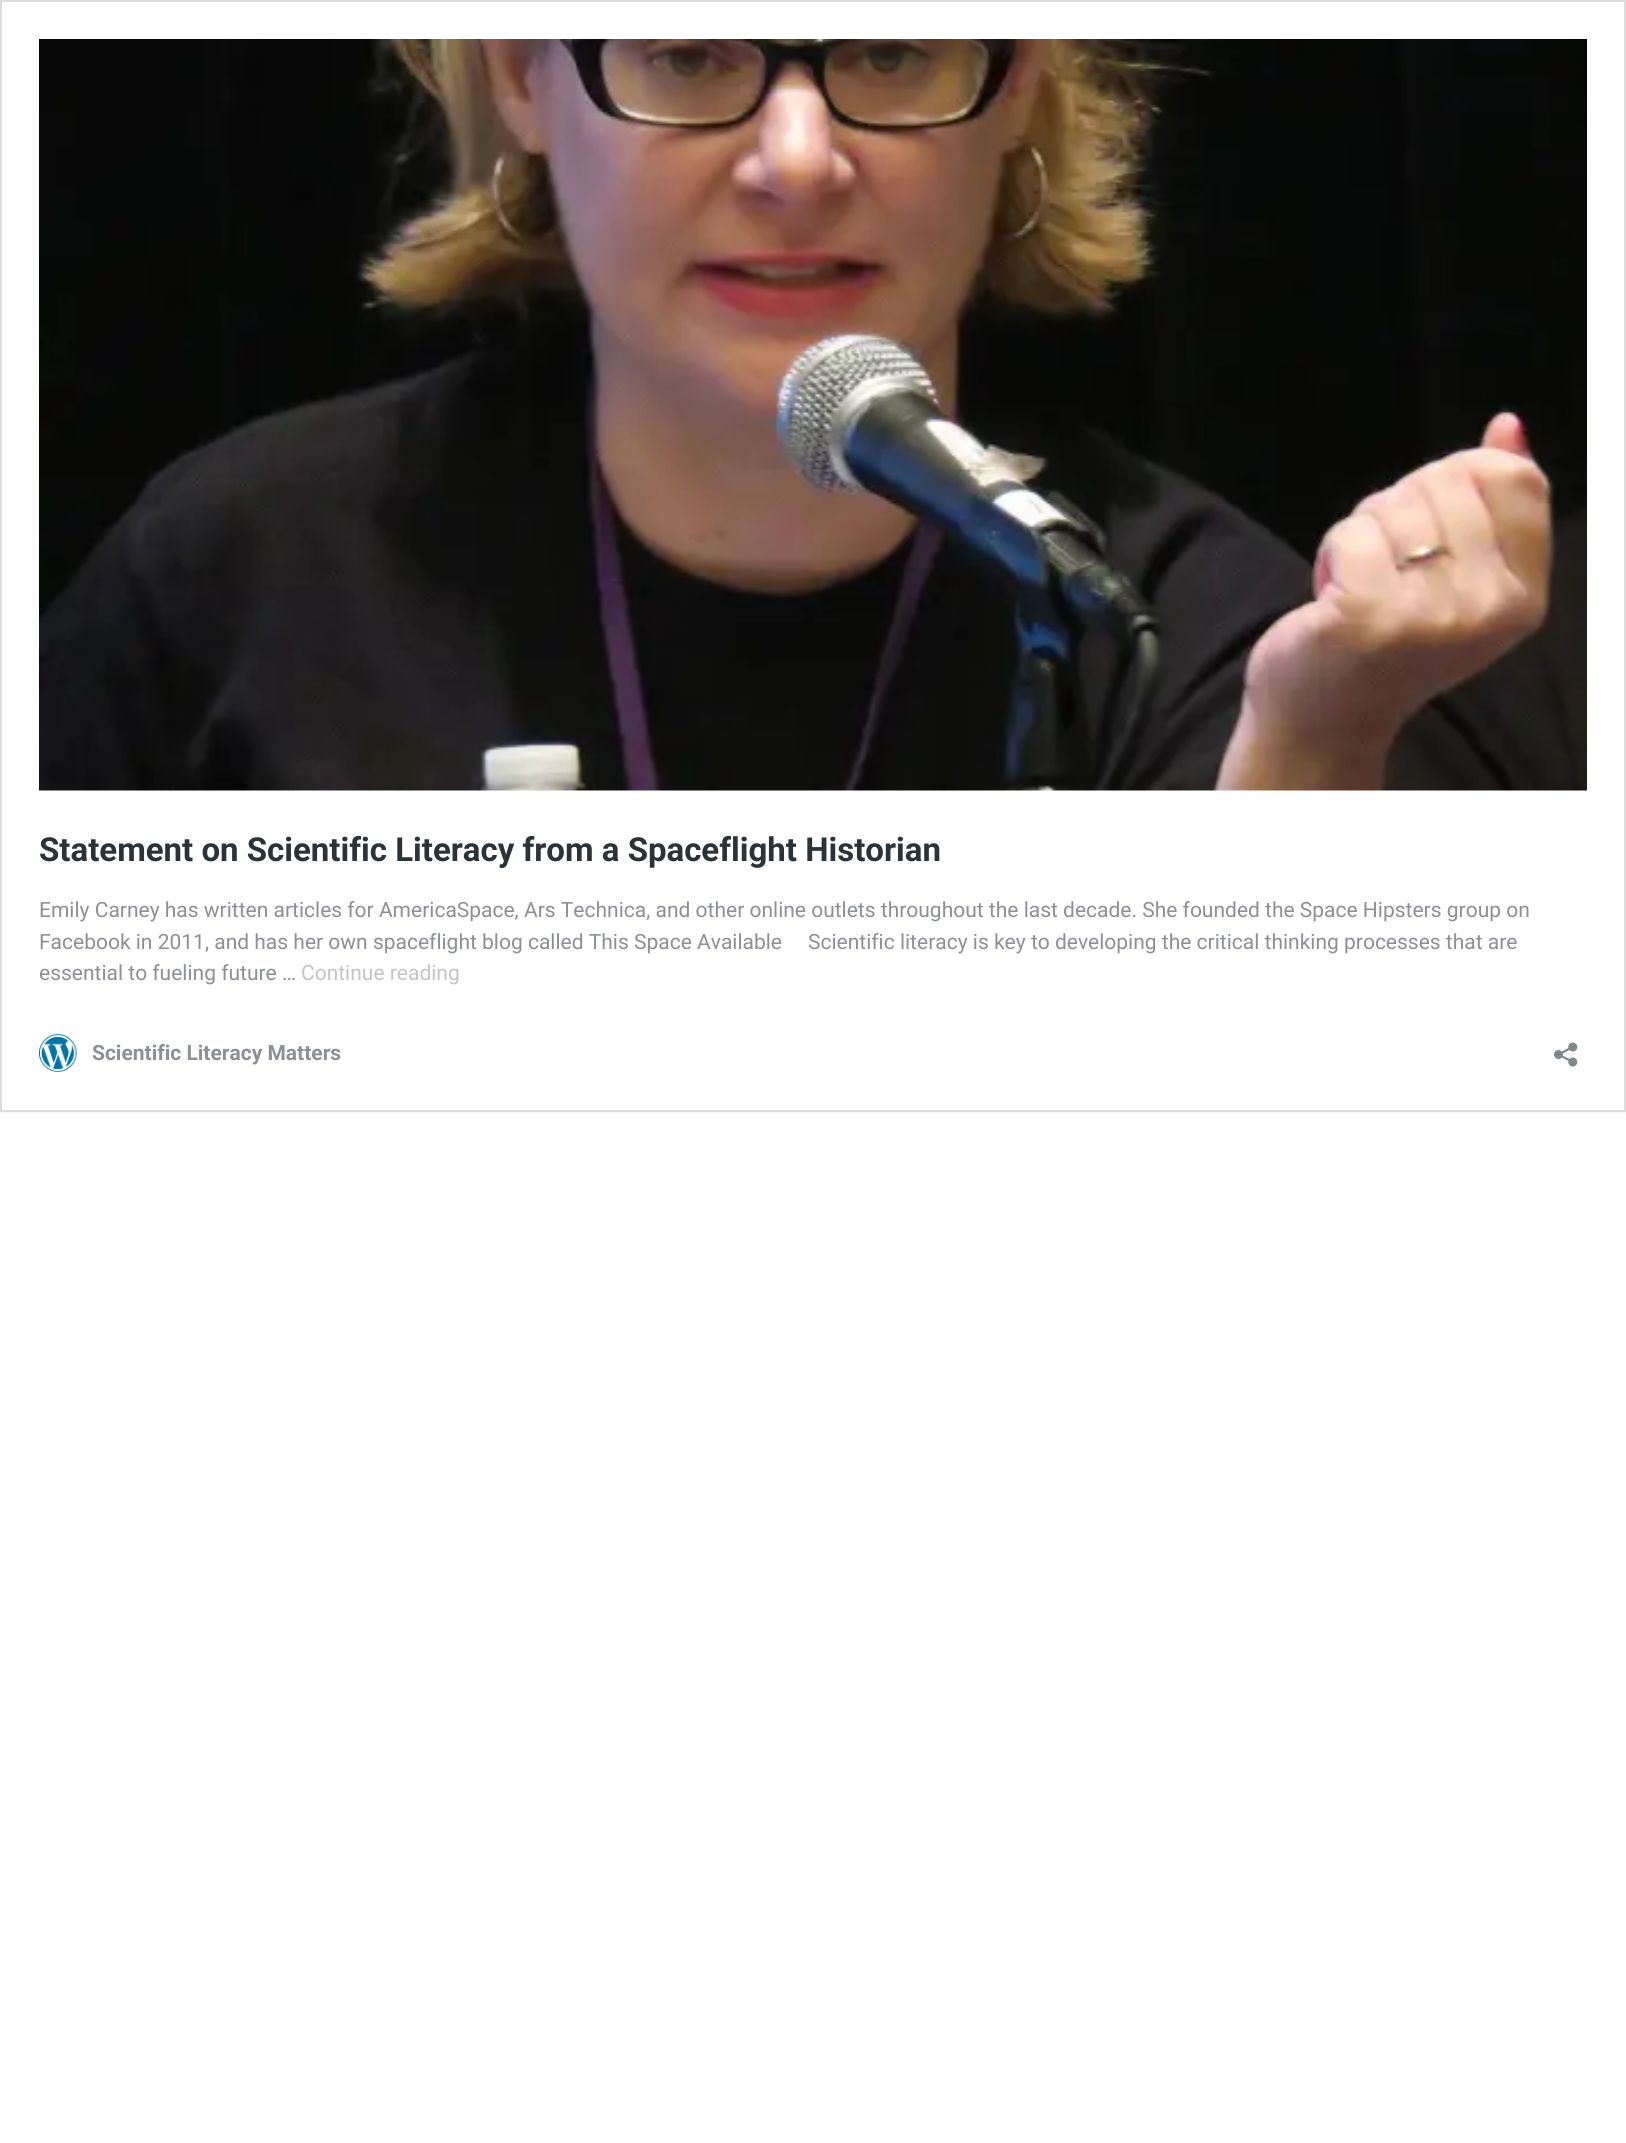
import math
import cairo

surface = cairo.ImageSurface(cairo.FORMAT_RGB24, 1626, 2143)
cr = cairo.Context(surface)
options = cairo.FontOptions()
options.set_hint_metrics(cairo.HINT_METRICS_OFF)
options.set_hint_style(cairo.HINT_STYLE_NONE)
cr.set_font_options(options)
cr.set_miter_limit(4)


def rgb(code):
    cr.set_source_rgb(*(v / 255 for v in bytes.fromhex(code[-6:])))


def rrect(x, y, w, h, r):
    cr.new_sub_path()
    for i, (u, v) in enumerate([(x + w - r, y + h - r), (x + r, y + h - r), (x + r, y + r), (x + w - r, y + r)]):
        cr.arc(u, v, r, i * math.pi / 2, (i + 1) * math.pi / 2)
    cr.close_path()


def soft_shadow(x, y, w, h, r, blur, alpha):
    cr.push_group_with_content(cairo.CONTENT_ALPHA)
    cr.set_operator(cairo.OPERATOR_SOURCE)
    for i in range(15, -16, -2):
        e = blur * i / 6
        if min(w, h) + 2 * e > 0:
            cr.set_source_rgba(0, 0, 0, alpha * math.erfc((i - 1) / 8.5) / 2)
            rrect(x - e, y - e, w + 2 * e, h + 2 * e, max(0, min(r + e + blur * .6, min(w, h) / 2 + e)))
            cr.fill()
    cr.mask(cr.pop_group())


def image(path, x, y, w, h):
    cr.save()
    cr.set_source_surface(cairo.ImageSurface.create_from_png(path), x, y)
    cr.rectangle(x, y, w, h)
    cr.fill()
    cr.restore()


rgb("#ffffff")
cr.paint()
rgb("#000000")
soft_shadow(0, 2, 1626, 1111, 0, 1, 0.05)
rgb("#ffffff")
cr.rectangle(1, 1, 1624, 1110)
cr.fill_preserve()
rgb("#dcdcde")
cr.stroke()
image("img/1.png", 39, 39, 1548, 752)
image("img/2.png", 39, 1034, 38, 38)
image("img/3.png", 1554, 1042, 24, 25)
cr.select_font_face("Roboto", cairo.FONT_SLANT_NORMAL, cairo.FONT_WEIGHT_BOLD)
cr.set_font_size(33)
rgb("#2c3338")
cr.move_to(39, 861)
cr.show_text("Statement on Scientific Literacy from a Spaceflight Historian")
cr.select_font_face("Roboto")
cr.set_font_size(21)
rgb("#8c8f94")
for x, y, s in [
    (39, 917, "Emily Carney has written articles for AmericaSpace, Ars Technica, and other online outlets throughout the last decade. She founded the Space Hipsters group on"),
    (39, 949, "Facebook in 2011, and has her own spaceflight blog called This Space Available     Scientific literacy is key to developing the critical thinking processes that are"),
    (39, 980, "essential to fueling future …"),
]:
    cr.move_to(x, y)
    cr.show_text(s)
rgb("#c3c4c7")
cr.move_to(301, 980)
cr.show_text("Continue reading")
cr.select_font_face("Roboto", cairo.FONT_SLANT_NORMAL, cairo.FONT_WEIGHT_BOLD)
rgb("#8c8f94")
cr.move_to(92, 1060)
cr.show_text("Scientific Literacy Matters")
surface.write_to_png("page.png")
